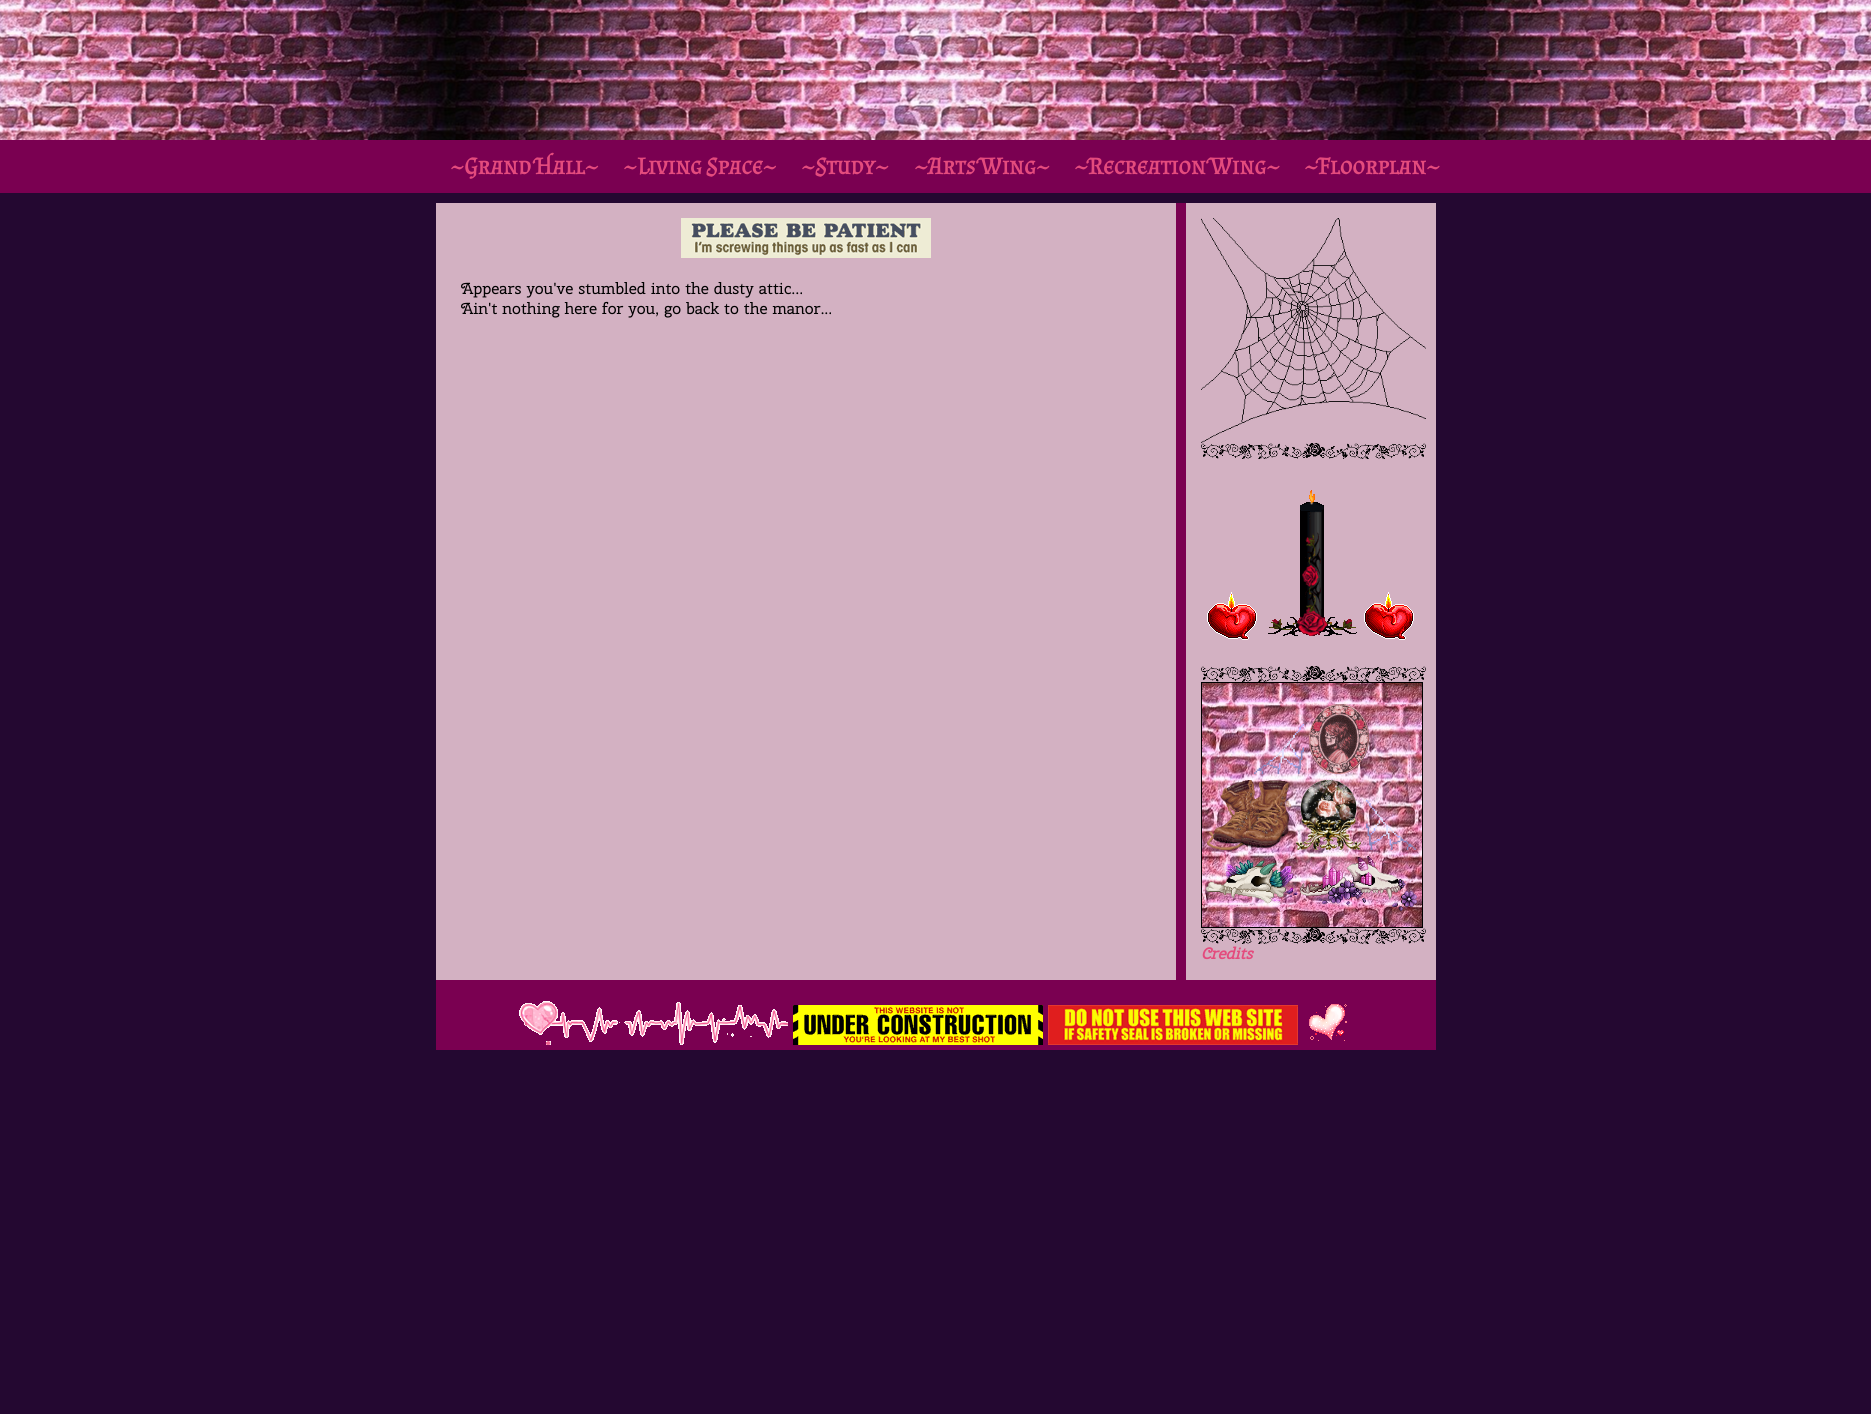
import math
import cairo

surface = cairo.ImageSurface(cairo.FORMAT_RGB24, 1871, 1414)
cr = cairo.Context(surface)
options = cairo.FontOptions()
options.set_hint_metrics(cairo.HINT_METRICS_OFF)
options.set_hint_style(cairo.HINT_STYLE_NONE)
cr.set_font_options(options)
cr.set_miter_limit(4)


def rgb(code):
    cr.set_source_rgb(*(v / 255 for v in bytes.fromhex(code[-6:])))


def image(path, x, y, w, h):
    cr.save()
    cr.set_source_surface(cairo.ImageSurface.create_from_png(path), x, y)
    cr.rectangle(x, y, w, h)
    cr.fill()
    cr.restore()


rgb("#240831")
cr.paint()
image("img/1.png", 0, 0, 1871, 70)
image("img/1.png", 0, 70, 1871, 70)
for x, y, w, h, color in [
    (0, 140, 1871, 53, "#7a0051"),
    (436, 203, 1000, 847, "#7a0051"),
    (436, 203, 740, 777, "#d3b1c2"),
]:
    rgb(color)
    cr.rectangle(x, y, w, h)
    cr.fill()
image("img/2.png", 681, 218, 250, 40)
cr.rectangle(1186, 203, 250, 777)
cr.fill()
image("img/3.png", 1201, 218, 225, 225)
image("img/4.png", 1201, 443, 225, 16)
image("img/5.png", 1207, 592, 50, 48)
image("img/6.png", 1268, 490, 89, 146)
image("img/5.png", 1364, 592, 50, 48)
image("img/4.png", 1201, 666, 225, 16)
image("img/7.png", 1202, 683, 220, 244)
cr.rectangle(1201.5, 682.5, 221, 245)
rgb("#000000")
cr.set_line_width(1)
cr.stroke()
image("img/8.png", 1254, 724, 50, 50)
image("img/9.png", 1309, 704, 60, 70)
image("img/10.png", 1207, 780, 84, 70)
image("img/11.png", 1296, 780, 65, 70)
image("img/12.png", 1366, 800, 50, 50)
image("img/13.png", 1206, 856, 211, 55)
image("img/4.png", 1201, 928, 225, 16)
image("img/14.png", 519, 1001, 269, 44)
image("img/15.png", 793, 1005, 250, 40)
image("img/16.png", 1048, 1005, 250, 40)
image("img/17.png", 1309, 1004, 38, 37)
cr.select_font_face("Almendra SC", cairo.FONT_SLANT_NORMAL, cairo.FONT_WEIGHT_BOLD)
cr.set_font_size(24)
rgb("#e44b7d")
for x, y, s in [
    (450, 174, "~Grand Hall~"),
    (623, 174, "~Living Space~"),
    (801, 174, "~Study~"),
    (914, 174, "~Arts Wing~"),
    (1074, 174, "~Recreation Wing~"),
    (1304, 174, "~Floorplan~"),
]:
    cr.move_to(x, y)
    cr.show_text(s)
cr.select_font_face("Cherry Swash")
cr.set_font_size(16)
rgb("#000000")
cr.move_to(461, 294)
cr.show_text("Appears you've stumbled into the dusty attic...")
cr.move_to(461, 314)
cr.show_text("Ain't nothing here for you, go back to the manor...")
cr.select_font_face("Cherry Swash", cairo.FONT_SLANT_ITALIC, cairo.FONT_WEIGHT_BOLD)
rgb("#e44b7d")
cr.move_to(1201, 959)
cr.show_text("Credits")
surface.write_to_png("page.png")
